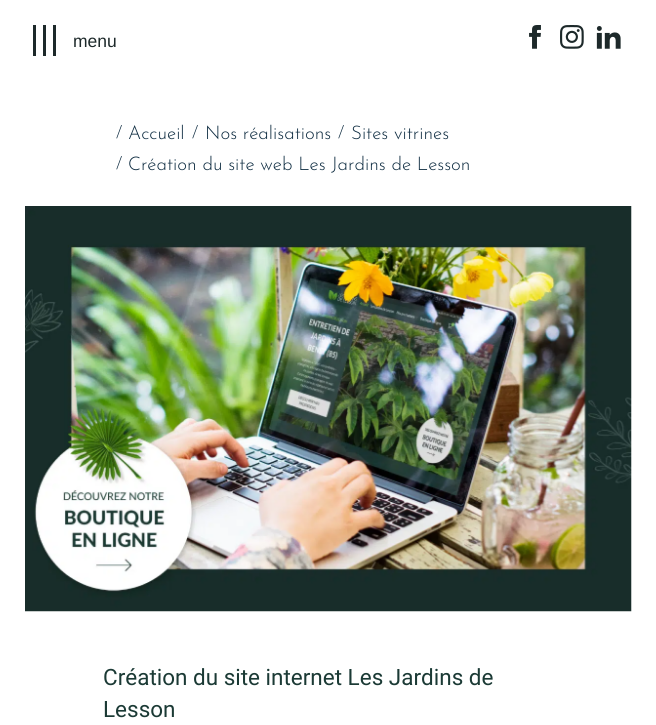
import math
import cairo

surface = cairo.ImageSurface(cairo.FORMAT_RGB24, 656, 725)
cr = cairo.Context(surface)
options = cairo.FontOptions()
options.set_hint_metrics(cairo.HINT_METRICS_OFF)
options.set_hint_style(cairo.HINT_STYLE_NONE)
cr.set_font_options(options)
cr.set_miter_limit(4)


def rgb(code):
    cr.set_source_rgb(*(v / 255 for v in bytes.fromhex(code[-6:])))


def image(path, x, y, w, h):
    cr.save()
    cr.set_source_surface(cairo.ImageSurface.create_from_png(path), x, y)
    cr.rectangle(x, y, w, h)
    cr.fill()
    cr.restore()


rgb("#ffffff")
cr.paint()
for x, y, w, h, color in [
    (33, 25, 3, 31, "#1d292a"),
    (43, 25, 3, 31, "#1d292a"),
    (53, 25, 3, 31, "#1d292a"),
]:
    rgb(color)
    cr.rectangle(x, y, w, h)
    cr.fill()
image("img/1.png", 529, 25, 12, 24)
image("img/2.png", 560, 25, 24, 24)
image("img/3.png", 596, 26, 25, 23)
image("img/4.png", 25, 206, 607, 406)
cr.select_font_face("Liberation Sans")
cr.set_font_size(17.5)
cr.move_to(73, 47)
cr.show_text("menu")
cr.select_font_face("Josefin Sans Light")
rgb("#0d2b40")
cr.move_to(116, 138)
cr.show_text("/")
cr.set_font_size(18.75)
cr.move_to(128, 139)
cr.show_text("Accueil")
cr.set_font_size(17.5)
cr.move_to(192, 138)
cr.show_text("/")
cr.set_font_size(18.75)
cr.move_to(205, 139)
cr.show_text("Nos réalisations")
cr.set_font_size(17.5)
cr.move_to(338, 138)
cr.show_text("/")
cr.set_font_size(18.75)
cr.move_to(351, 139)
cr.show_text("Sites vitrines")
cr.set_font_size(17.5)
cr.move_to(116, 169)
cr.show_text("/")
cr.set_font_size(18.75)
cr.move_to(128, 170)
cr.show_text("Création du site web Les Jardins de Lesson")
cr.select_font_face("Roboto")
cr.set_font_size(22.5)
rgb("#1b3a35")
cr.move_to(103, 685)
cr.show_text("Création du site internet Les Jardins de")
cr.move_to(103, 717)
cr.show_text("Lesson")
surface.write_to_png("page.png")
